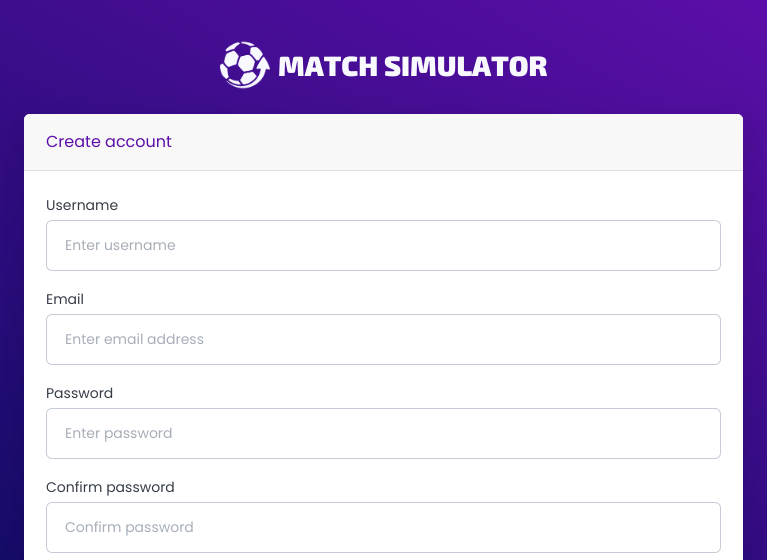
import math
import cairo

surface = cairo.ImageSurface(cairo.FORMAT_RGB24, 767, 560)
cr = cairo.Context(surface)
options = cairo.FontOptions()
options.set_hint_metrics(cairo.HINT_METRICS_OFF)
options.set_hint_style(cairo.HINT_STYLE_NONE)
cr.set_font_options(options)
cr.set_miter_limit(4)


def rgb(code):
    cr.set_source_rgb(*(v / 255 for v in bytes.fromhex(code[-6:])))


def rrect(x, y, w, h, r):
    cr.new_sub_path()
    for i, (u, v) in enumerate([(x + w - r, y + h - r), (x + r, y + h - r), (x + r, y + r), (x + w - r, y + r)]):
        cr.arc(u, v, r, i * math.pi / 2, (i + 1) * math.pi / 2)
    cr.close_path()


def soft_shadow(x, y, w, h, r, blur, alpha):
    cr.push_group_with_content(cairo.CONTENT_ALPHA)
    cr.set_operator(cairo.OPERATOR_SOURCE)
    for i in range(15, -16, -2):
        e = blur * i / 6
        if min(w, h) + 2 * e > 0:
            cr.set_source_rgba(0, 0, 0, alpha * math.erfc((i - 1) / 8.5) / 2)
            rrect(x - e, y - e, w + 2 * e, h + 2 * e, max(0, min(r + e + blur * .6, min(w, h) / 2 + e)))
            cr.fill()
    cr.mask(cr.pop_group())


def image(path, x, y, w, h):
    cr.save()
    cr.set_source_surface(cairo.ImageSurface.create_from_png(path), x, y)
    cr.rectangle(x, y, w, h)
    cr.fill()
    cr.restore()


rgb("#ffffff")
cr.paint()
gradient = cairo.LinearGradient(175, 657, 592, -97)
gradient.add_color_stop_rgba(0, 0.082, 0.043, 0.416, 1)
gradient.add_color_stop_rgba(1, 0.361, 0.055, 0.659, 1)
cr.set_source(gradient)
cr.rectangle(0, 0, 767, 560)
cr.fill()
image("img/1.png", 220, 41, 50, 48)
rgb("#05031b")
soft_shadow(24, 130, 719, 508, 6, 24, 0.18)
rgb("#ffffff")
rrect(24, 114, 719, 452, 6)
cr.fill()
rgb("#f8f8f9")
cr.new_path()
cr.move_to(30, 114)
cr.line_to(737, 114)
cr.curve_to(740.5, 114, 743, 116.5, 743, 120)
cr.line_to(743, 171)
cr.line_to(24, 171)
cr.line_to(24, 120)
cr.curve_to(24, 116.5, 26.5, 114, 30, 114)
cr.close_path()
cr.fill()
rgb("#dddee0")
cr.rectangle(24, 170, 719, 1)
cr.fill()
rrect(46.5, 220.5, 674, 50, 5.5)
rgb("#c5ccd6")
cr.set_line_width(1)
cr.stroke()
rrect(46.5, 314.5, 674, 50, 5.5)
cr.stroke()
rrect(46.5, 408.5, 674, 50, 5.5)
cr.stroke()
rrect(46.5, 502.5, 674, 50, 5.5)
cr.stroke()
cr.select_font_face("Exo 2 Black")
cr.set_font_size(28)
rgb("#f8f8ff")
cr.move_to(278, 76)
cr.show_text("MATCH SIMULATOR")
cr.select_font_face("Poppins")
cr.set_font_size(16)
rgb("#5c0ea8")
cr.move_to(46, 147)
cr.show_text("Create account")
cr.set_font_size(14)
rgb("#363d47")
cr.move_to(46, 210)
cr.show_text("Username")
rgb("#a7aeb8")
cr.move_to(65, 250)
cr.show_text("Enter username")
rgb("#363d47")
cr.move_to(46, 304)
cr.show_text("Email")
rgb("#a7aeb8")
cr.move_to(65, 344)
cr.show_text("Enter email address")
rgb("#363d47")
cr.move_to(46, 398)
cr.show_text("Password")
rgb("#a7aeb8")
cr.move_to(65, 438)
cr.show_text("Enter password")
rgb("#363d47")
cr.move_to(46, 492)
cr.show_text("Confirm password")
rgb("#a7aeb8")
cr.move_to(65, 532)
cr.show_text("Confirm password")
surface.write_to_png("page.png")
